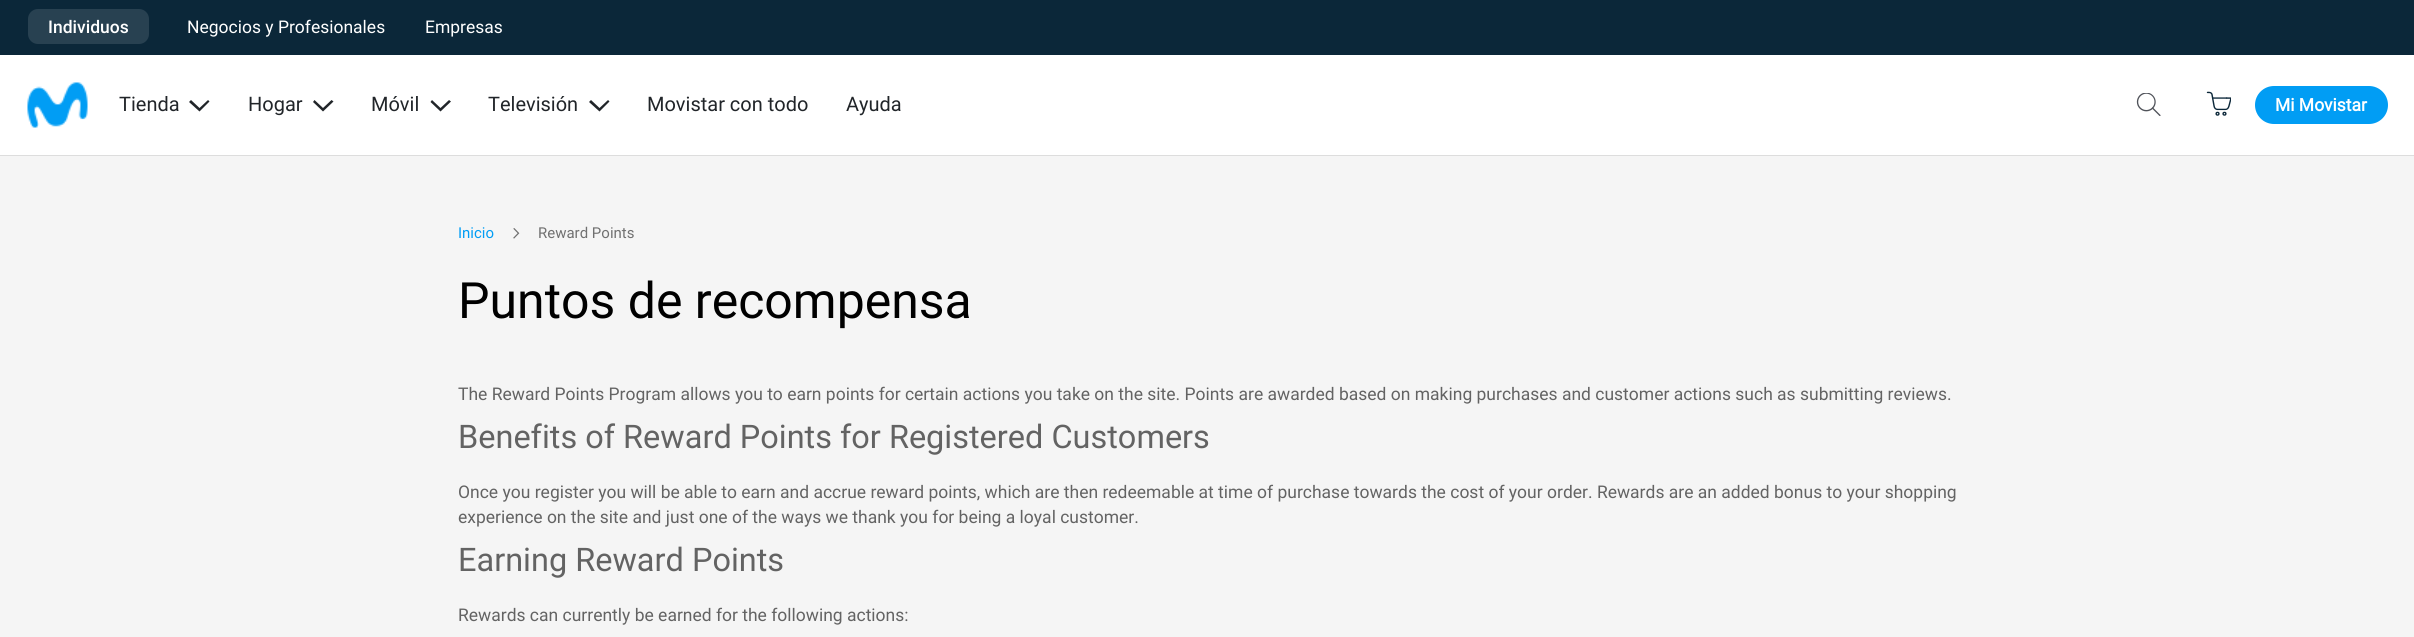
import math
import cairo

surface = cairo.ImageSurface(cairo.FORMAT_RGB24, 2414, 637)
cr = cairo.Context(surface)
options = cairo.FontOptions()
options.set_hint_metrics(cairo.HINT_METRICS_OFF)
options.set_hint_style(cairo.HINT_STYLE_NONE)
cr.set_font_options(options)
cr.set_miter_limit(4)


def rgb(code):
    cr.set_source_rgb(*(v / 255 for v in bytes.fromhex(code[-6:])))


def rrect(x, y, w, h, r):
    cr.new_sub_path()
    for i, (u, v) in enumerate([(x + w - r, y + h - r), (x + r, y + h - r), (x + r, y + r), (x + w - r, y + r)]):
        cr.arc(u, v, r, i * math.pi / 2, (i + 1) * math.pi / 2)
    cr.close_path()


def image(path, x, y, w, h):
    cr.save()
    cr.set_source_surface(cairo.ImageSurface.create_from_png(path), x, y)
    cr.rectangle(x, y, w, h)
    cr.fill()
    cr.restore()


rgb("#f5f5f5")
cr.paint()
for x, y, w, h, color in [
    (0, 55, 2414, 100, "#ffffff"),
    (0, 155, 2414, 1, "#dddddd"),
    (0, 0, 2414, 55, "#0b2739"),
]:
    rgb(color)
    cr.rectangle(x, y, w, h)
    cr.fill()
rgb("#284151")
rrect(28, 9, 121, 35, 10)
cr.fill()
image("img/1.png", 27, 82, 61, 46)
rgb("#212529")
cr.new_path()
cr.move_to(199.5, 108)
cr.line_to(191, 100)
cr.line_to(189, 102)
cr.line_to(199.5, 111.5)
cr.line_to(209.5, 101.5)
cr.line_to(208, 100)
cr.close_path()
cr.fill()
cr.new_path()
cr.move_to(323, 108)
cr.line_to(314.5, 100)
cr.line_to(313, 102)
cr.line_to(323, 111.5)
cr.line_to(333.5, 101.5)
cr.line_to(331.5, 100)
cr.close_path()
cr.fill()
cr.new_path()
cr.move_to(440.5, 108)
cr.line_to(432, 100)
cr.line_to(430.5, 102)
cr.line_to(440.5, 111.5)
cr.line_to(451, 101.5)
cr.line_to(449, 100)
cr.close_path()
cr.fill()
cr.new_path()
cr.move_to(599.5, 108)
cr.line_to(591, 100)
cr.line_to(589, 102)
cr.line_to(599.5, 111.5)
cr.line_to(609.5, 101.5)
cr.line_to(608, 100)
cr.close_path()
cr.fill()
image("img/2.png", 2136, 93, 25, 23)
image("img/3.png", 2206, 91, 25, 25)
rgb("#019df4")
rrect(2255, 86, 133, 38, 19)
cr.fill()
image("img/4.png", 513, 228, 7, 11)
cr.select_font_face("Roboto Medium")
cr.set_font_size(17.5)
rgb("#ffffff")
cr.move_to(48, 33)
cr.show_text("Individuos")
cr.select_font_face("Roboto")
cr.move_to(187, 33)
cr.show_text("Negocios y Profesionales")
cr.move_to(425, 33)
cr.show_text("Empresas")
cr.set_font_size(20)
rgb("#212529")
for x, y, s in [
    (119, 111, "Tienda"),
    (248, 111, "Hogar"),
    (371, 111, "Móvil"),
    (488, 111, "Televisión"),
    (647, 111, "Movistar con todo"),
    (846, 111, "Ayuda"),
]:
    cr.move_to(x, y)
    cr.show_text(s)
cr.select_font_face("Roboto", cairo.FONT_SLANT_NORMAL, cairo.FONT_WEIGHT_BOLD)
cr.set_font_size(17.5)
rgb("#ffffff")
cr.move_to(2275, 111)
cr.show_text("Mi Movistar")
cr.select_font_face("Roboto")
cr.set_font_size(15)
rgb("#019df4")
cr.move_to(458, 238)
cr.show_text("Inicio")
rgb("#707070")
cr.move_to(538, 238)
cr.show_text("Reward Points")
cr.set_font_size(50)
rgb("#000000")
cr.move_to(458, 318)
cr.show_text("Puntos de recompensa")
cr.set_font_size(17.5)
rgb("#636363")
cr.move_to(458, 400)
cr.show_text("The Reward Points Program allows you to earn points for certain actions you take on the site. Points are awarded based on making purchases and customer actions such as submitting reviews.")
cr.set_font_size(32.5)
cr.move_to(458, 448)
cr.show_text("Benefits of Reward Points for Registered Customers")
cr.set_font_size(17.5)
cr.move_to(458, 498)
cr.show_text("Once you register you will be able to earn and accrue reward points, which are then redeemable at time of purchase towards the cost of your order. Rewards are an added bonus to your shopping")
cr.move_to(458, 523)
cr.show_text("experience on the site and just one of the ways we thank you for being a loyal customer.")
cr.set_font_size(32.5)
cr.move_to(458, 571)
cr.show_text("Earning Reward Points")
cr.set_font_size(17.5)
cr.move_to(458, 621)
cr.show_text("Rewards can currently be earned for the following actions:")
surface.write_to_png("page.png")
